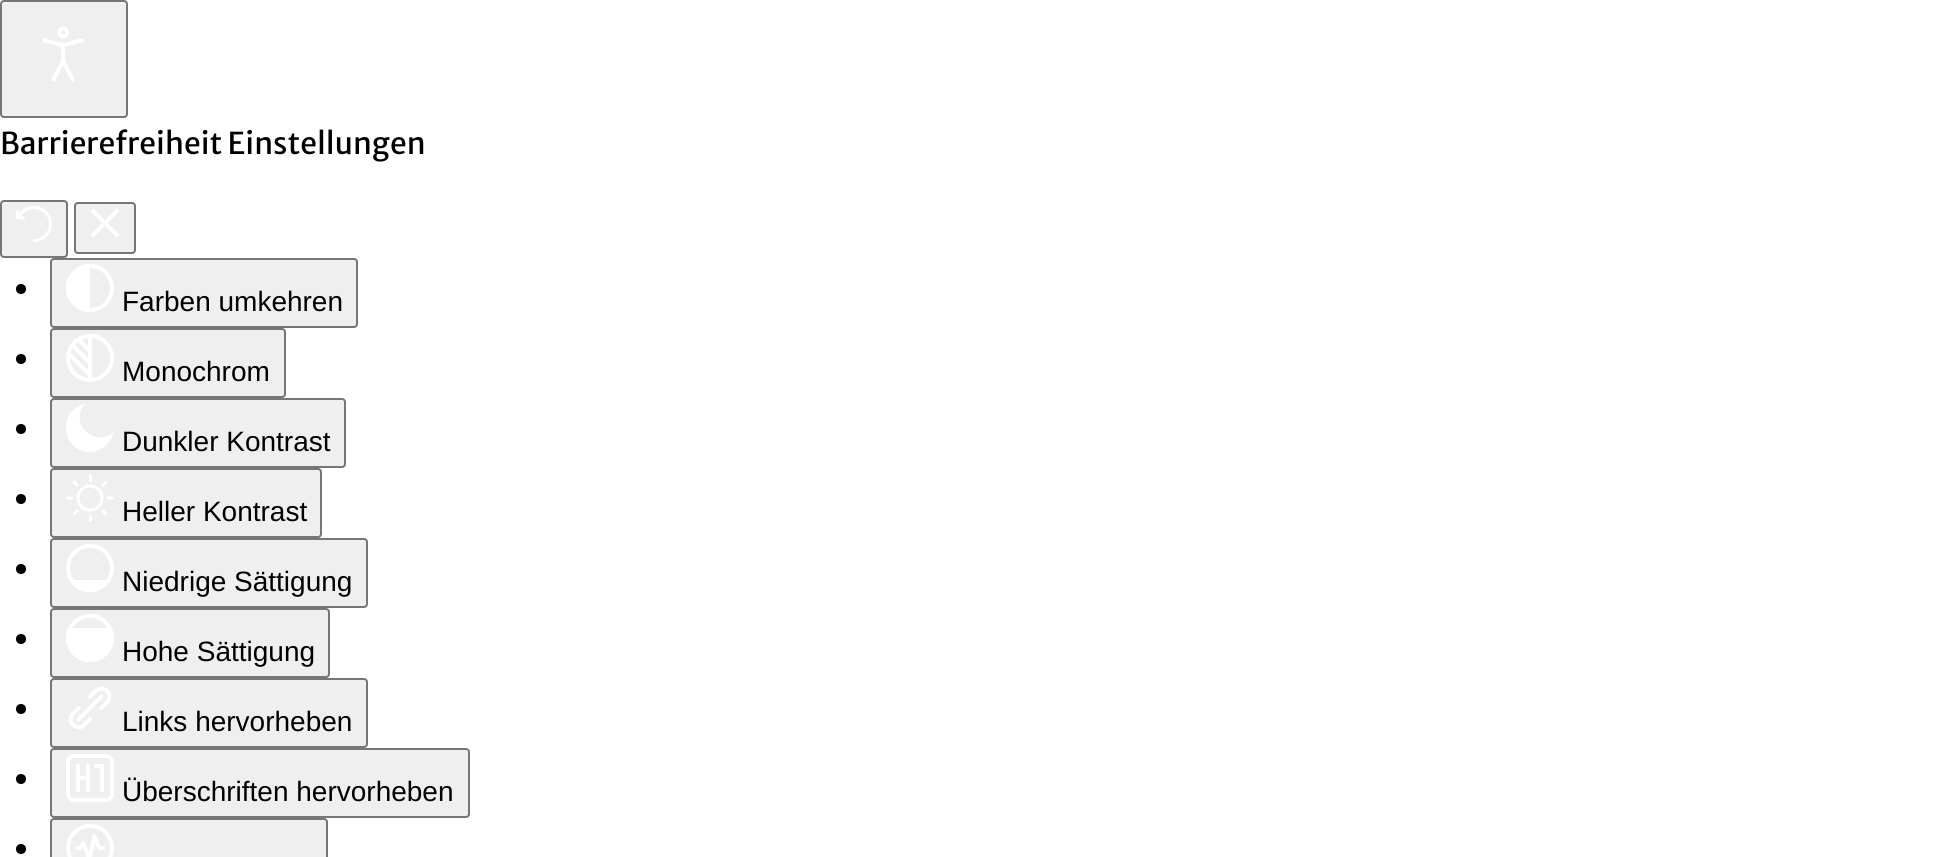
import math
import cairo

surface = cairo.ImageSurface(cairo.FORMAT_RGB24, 1939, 857)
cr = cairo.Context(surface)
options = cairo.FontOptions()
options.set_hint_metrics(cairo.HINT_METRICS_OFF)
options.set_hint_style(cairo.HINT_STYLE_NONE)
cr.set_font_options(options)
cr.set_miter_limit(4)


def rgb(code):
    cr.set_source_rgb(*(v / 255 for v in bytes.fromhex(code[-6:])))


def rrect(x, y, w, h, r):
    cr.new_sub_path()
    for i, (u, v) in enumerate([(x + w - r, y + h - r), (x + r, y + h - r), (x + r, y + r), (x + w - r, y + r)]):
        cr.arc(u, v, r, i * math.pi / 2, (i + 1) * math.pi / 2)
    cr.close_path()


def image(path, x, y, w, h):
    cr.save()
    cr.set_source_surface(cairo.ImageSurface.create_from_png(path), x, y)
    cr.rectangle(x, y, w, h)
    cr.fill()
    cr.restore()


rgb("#ffffff")
cr.paint()
rgb("#efefef")
rrect(1, 1, 126, 116, 3)
cr.fill_preserve()
rgb("#767676")
cr.stroke()
image("img/1.png", 42, 26, 42, 56)
rgb("#efefef")
rrect(1, 201, 66, 56, 3)
cr.fill_preserve()
rgb("#767676")
cr.stroke()
image("img/2.png", 16, 206, 36, 36)
rgb("#efefef")
rrect(75, 203, 60, 50, 3)
cr.fill_preserve()
rgb("#767676")
cr.stroke()
cr.new_path()
cr.move_to(93, 211)
cr.line_to(117, 235)
cr.move_to(117, 211)
cr.line_to(93, 235)
rgb("#ffffff")
cr.set_line_width(4)
cr.set_line_cap(cairo.LINE_CAP_ROUND)
cr.stroke()
rgb("#000000")
cr.arc(21, 289, 5, 0, 2 * math.pi)
cr.fill()
rgb("#efefef")
rrect(51, 259, 306, 68, 3)
cr.fill_preserve()
rgb("#767676")
cr.set_line_width(2)
cr.set_line_cap(cairo.LINE_CAP_BUTT)
cr.stroke()
cr.arc(90, 288, 22, 0, 2 * math.pi)
rgb("#ffffff")
cr.set_line_width(4)
cr.stroke()
cr.new_path()
cr.move_to(66, 288)
cr.curve_to(66, 275, 77, 264, 90, 264)
cr.line_to(90, 312)
cr.curve_to(77, 312, 66, 301, 66, 288)
cr.close_path()
cr.fill()
rgb("#000000")
cr.arc(21, 359, 5, 0, 2 * math.pi)
cr.fill()
rgb("#efefef")
rrect(51, 329, 234, 68, 3)
cr.fill_preserve()
rgb("#767676")
cr.set_line_width(2)
cr.stroke()
cr.arc(90, 358, 22, 0, 2 * math.pi)
rgb("#ffffff")
cr.set_line_width(4)
cr.stroke()
cr.new_path()
cr.move_to(90, 337)
cr.line_to(90, 379)
cr.set_line_cap(cairo.LINE_CAP_ROUND)
cr.stroke()
cr.new_path()
cr.move_to(76, 340)
cr.line_to(79.5, 337.5)
cr.line_to(92, 350)
cr.line_to(92, 356)
cr.close_path()
cr.fill()
cr.new_path()
cr.move_to(71, 346.5)
cr.line_to(73, 343)
cr.line_to(92, 362)
cr.line_to(92, 368)
cr.close_path()
cr.fill()
cr.new_path()
cr.move_to(68, 356)
cr.line_to(69, 351)
cr.line_to(92, 374)
cr.line_to(92, 380)
cr.close_path()
cr.fill()
rgb("#000000")
cr.arc(21, 429, 5, 0, 2 * math.pi)
cr.fill()
rgb("#efefef")
rrect(51, 399, 294, 68, 3)
cr.fill_preserve()
rgb("#767676")
cr.set_line_width(2)
cr.set_line_cap(cairo.LINE_CAP_BUTT)
cr.stroke()
rgb("#ffffff")
cr.new_path()
cr.move_to(90, 452)
cr.curve_to(61, 452, 57, 410, 85, 404)
cr.curve_to(68, 423, 95, 449, 114, 432)
cr.curve_to(111, 443, 101, 452, 90, 452)
cr.close_path()
cr.fill()
rgb("#000000")
cr.arc(21, 499, 5, 0, 2 * math.pi)
cr.fill()
rgb("#efefef")
rrect(51, 469, 270, 68, 3)
cr.fill_preserve()
rgb("#767676")
cr.stroke()
image("img/3.png", 66, 474, 48, 48)
rgb("#000000")
cr.arc(21, 569, 5, 0, 2 * math.pi)
cr.fill()
rgb("#efefef")
rrect(51, 539, 316, 68, 3)
cr.fill_preserve()
rgb("#767676")
cr.stroke()
cr.arc(90, 568, 22, 0, 2 * math.pi)
rgb("#ffffff")
cr.set_line_width(4)
cr.stroke()
cr.new_path()
cr.move_to(90, 592)
cr.curve_to(81, 592, 73, 587, 69, 580)
cr.line_to(111, 580)
cr.curve_to(107, 587, 99, 592, 90, 592)
cr.close_path()
cr.fill()
rgb("#000000")
cr.arc(21, 639, 5, 0, 2 * math.pi)
cr.fill()
rgb("#efefef")
rrect(51, 609, 278, 68, 3)
cr.fill_preserve()
rgb("#767676")
cr.set_line_width(2)
cr.stroke()
cr.arc(90, 638, 22, 0, 2 * math.pi)
rgb("#ffffff")
cr.set_line_width(4)
cr.stroke()
cr.new_path()
cr.move_to(90, 662)
cr.curve_to(73, 662, 61, 644, 68, 628)
cr.line_to(112, 628)
cr.curve_to(119, 644, 107, 662, 90, 662)
cr.close_path()
cr.fill()
rgb("#000000")
cr.arc(21, 709, 5, 0, 2 * math.pi)
cr.fill()
rgb("#efefef")
rrect(51, 679, 316, 68, 3)
cr.fill_preserve()
rgb("#767676")
cr.set_line_width(2)
cr.stroke()
image("img/4.png", 68, 686, 44, 44)
rgb("#000000")
cr.arc(21, 779, 5, 0, 2 * math.pi)
cr.fill()
rgb("#efefef")
rrect(51, 749, 418, 68, 3)
cr.fill_preserve()
rgb("#767676")
cr.stroke()
image("img/5.png", 66, 754, 48, 48)
rgb("#000000")
cr.arc(21, 849, 5, 0, 2 * math.pi)
cr.fill()
rgb("#efefef")
rrect(51, 819, 276, 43, 3)
cr.fill_preserve()
rgb("#767676")
cr.stroke()
cr.arc(90, 848, 22, 0, 2 * math.pi)
rgb("#ffffff")
cr.set_line_width(4)
cr.stroke()
cr.new_path()
cr.move_to(77, 848)
cr.line_to(80.5, 848)
cr.line_to(83.5, 843)
cr.line_to(89.5, 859.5)
cr.line_to(94.5, 836.5)
cr.line_to(99, 848)
cr.line_to(103, 848)
cr.set_line_cap(cairo.LINE_CAP_ROUND)
cr.set_line_join(cairo.LINE_JOIN_ROUND)
cr.stroke()
cr.select_font_face("Merriweather Sans")
cr.set_font_size(30)
rgb("#000000")
cr.move_to(0, 154)
cr.show_text("Barrierefreiheit Einstellungen")
cr.select_font_face("Liberation Sans")
cr.set_font_size(28)
for x, y, s in [
    (122, 311, "Farben umkehren"),
    (122, 381, "Monochrom"),
    (122, 451, "Dunkler Kontrast"),
    (122, 521, "Heller Kontrast"),
    (122, 591, "Niedrige Sättigung"),
    (122, 661, "Hohe Sättigung"),
    (122, 731, "Links hervorheben"),
    (122, 801, "Überschriften hervorheben"),
]:
    cr.move_to(x, y)
    cr.show_text(s)
surface.write_to_png("page.png")
